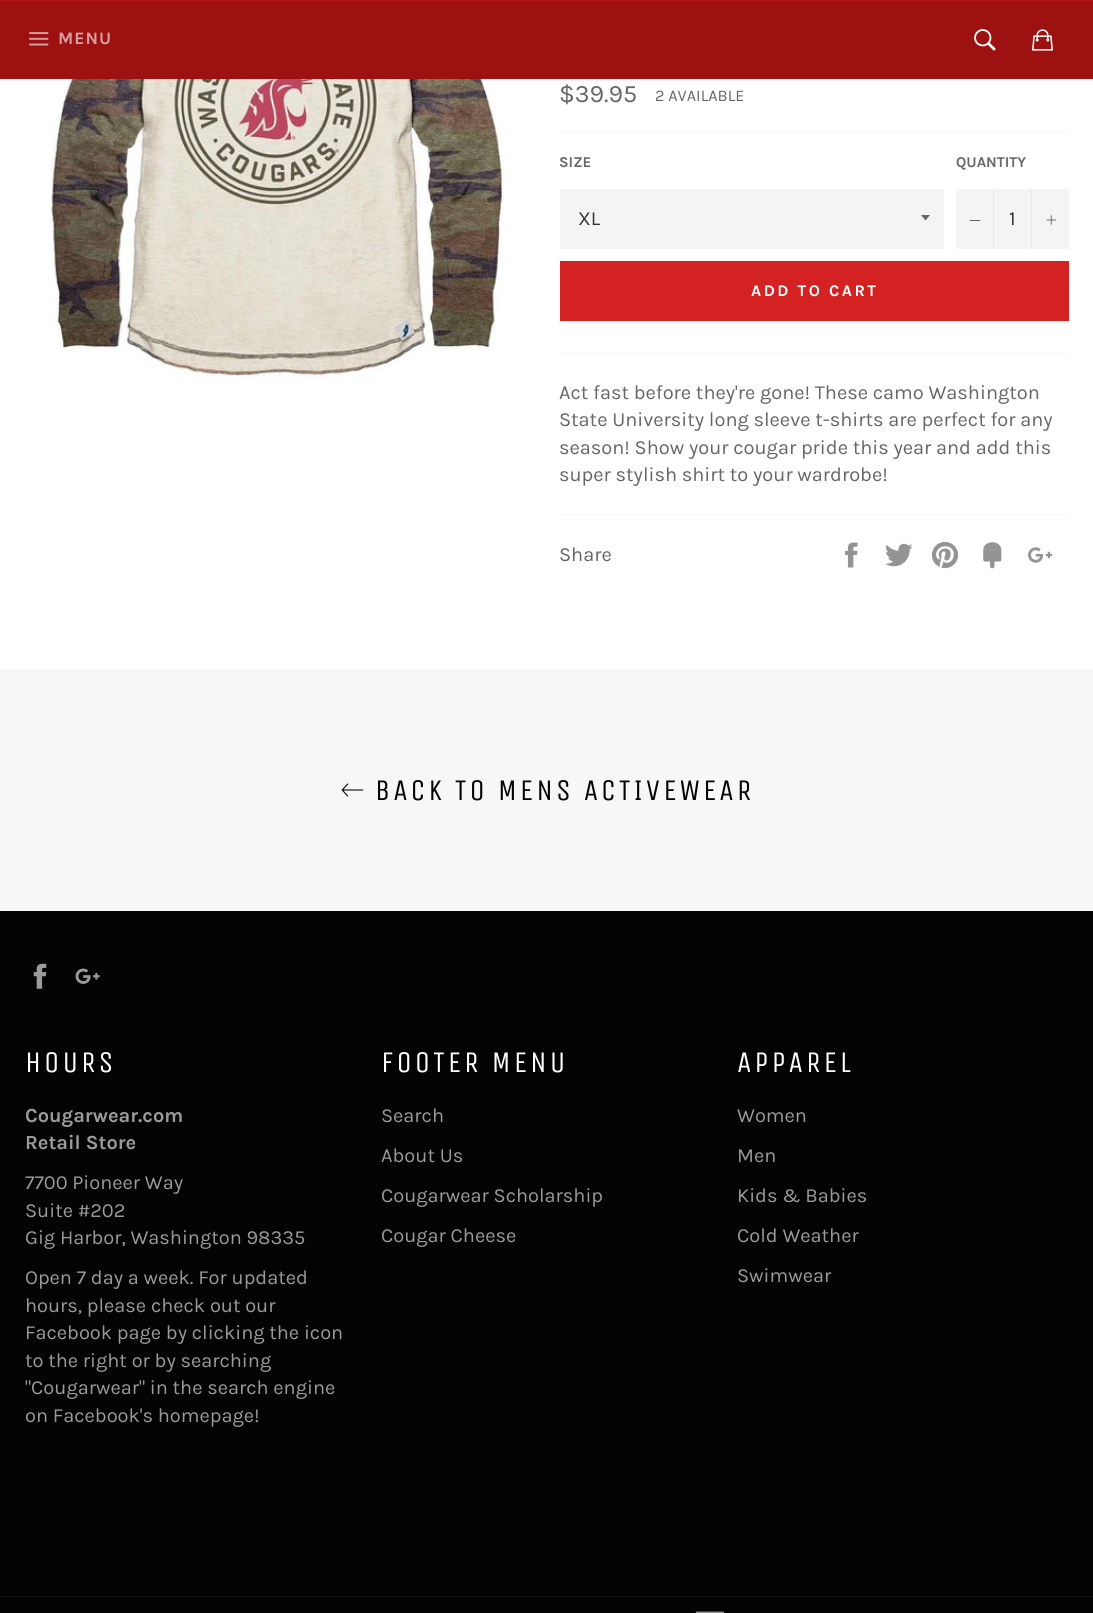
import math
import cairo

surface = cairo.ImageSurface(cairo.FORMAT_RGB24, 1093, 1613)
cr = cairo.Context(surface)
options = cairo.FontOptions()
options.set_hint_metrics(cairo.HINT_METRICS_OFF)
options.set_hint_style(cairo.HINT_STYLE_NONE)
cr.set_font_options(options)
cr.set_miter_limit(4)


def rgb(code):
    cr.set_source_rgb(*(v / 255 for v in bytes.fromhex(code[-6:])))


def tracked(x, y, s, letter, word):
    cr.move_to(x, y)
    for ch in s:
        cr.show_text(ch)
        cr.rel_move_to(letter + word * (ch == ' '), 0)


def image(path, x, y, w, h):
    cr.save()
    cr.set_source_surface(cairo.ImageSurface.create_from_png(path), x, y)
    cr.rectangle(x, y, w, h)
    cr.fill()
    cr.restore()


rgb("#030303")
cr.paint()
for x, y, w, h, color in [
    (0, 79, 1093, 591, "#ffffff"),
    (0, 1, 1093, 78, "#9d1111"),
    (0, 0, 1093, 1, "#b41313"),
]:
    rgb(color)
    cr.rectangle(x, y, w, h)
    cr.fill()
image("img/1.png", 29, 32, 20, 14)
image("img/2.png", 974, 29, 22, 22)
image("img/3.png", 1031, 29, 23, 22)
image("img/4.png", 50, 79, 455, 301)
rgb("#f7f7f7")
cr.rectangle(560, 131, 509, 1)
cr.fill()
rgb("#f4f4f4")
cr.rectangle(560, 189, 384, 60)
cr.fill()
rgb("#666666")
cr.new_path()
cr.move_to(921, 215)
cr.line_to(925.5, 220.5)
cr.line_to(930, 215)
cr.close_path()
cr.fill()
for x, y, w, h, color in [
    (956, 189, 113, 60, "#f4f4f4"),
    (993, 189, 1, 60, "#e7e7e7"),
    (970, 220, 10, 1, "#666666"),
    (1031, 189, 1, 60, "#e7e7e7"),
]:
    rgb(color)
    cr.rectangle(x, y, w, h)
    cr.fill()
image("img/5.png", 1046, 215, 10, 10)
for x, y, w, h, color in [
    (560, 261, 509, 60, "#d42222"),
    (560, 353, 509, 1, "#f7f7f7"),
    (560, 514, 509, 1, "#f7f7f7"),
]:
    rgb(color)
    cr.rectangle(x, y, w, h)
    cr.fill()
image("img/6.png", 845, 542, 13, 26)
image("img/7.png", 885, 543, 28, 24)
image("img/8.png", 931, 541, 28, 28)
image("img/9.png", 983, 542, 19, 27)
image("img/10.png", 1028, 547, 25, 16)
cr.rectangle(0, 670, 1093, 241)
cr.fill()
image("img/11.png", 341, 783, 23, 14)
image("img/12.png", 33, 963, 14, 26)
image("img/13.png", 75, 968, 25, 16)
rgb("#101010")
cr.rectangle(0, 1596, 1093, 1)
cr.fill()
image("img/14.png", 695, 1611, 29, 2)
cr.select_font_face("Karla", cairo.FONT_SLANT_NORMAL, cairo.FONT_WEIGHT_BOLD)
cr.set_font_size(17.5)
rgb("#d8a0a0")
tracked(58, 44, "MENU", 1, 0)
cr.select_font_face("Karla")
cr.set_font_size(25)
rgb("#666666")
cr.move_to(559, 102)
cr.show_text("$39.95")
cr.set_font_size(16.25)
cr.move_to(655, 101)
cr.show_text("2 AVAILABLE")
cr.select_font_face("Karla", cairo.FONT_SLANT_NORMAL, cairo.FONT_WEIGHT_BOLD)
cr.set_font_size(15)
cr.move_to(559, 167)
cr.show_text("SIZE")
cr.select_font_face("Karla")
cr.set_font_size(20)
rgb("#333333")
cr.move_to(578, 225)
cr.show_text("XL")
cr.select_font_face("Karla", cairo.FONT_SLANT_NORMAL, cairo.FONT_WEIGHT_BOLD)
cr.set_font_size(15)
rgb("#666666")
cr.move_to(956, 167)
cr.show_text("QUANTITY")
cr.select_font_face("Karla")
cr.set_font_size(20)
rgb("#333333")
cr.move_to(1009, 225)
cr.show_text("1")
cr.select_font_face("Karla", cairo.FONT_SLANT_NORMAL, cairo.FONT_WEIGHT_BOLD)
cr.set_font_size(16.25)
rgb("#ffffff")
tracked(751, 296, "ADD TO CART", 2.5, 0)
cr.select_font_face("Karla")
cr.set_font_size(20)
rgb("#666666")
for x, y, s in [
    (559, 399, "Act fast before they're gone! These camo Washington"),
    (559, 426, "State University long sleeve t-shirts are perfect for any"),
    (559, 454, "season! Show your cougar pride this year and add this"),
    (559, 481, "super stylish shirt to your wardrobe!"),
    (559, 561, "Share"),
]:
    cr.move_to(x, y)
    cr.show_text(s)
cr.select_font_face("Unica One")
cr.set_font_size(30)
rgb("#030303")
tracked(375, 800, "BACK TO MENS ACTIVEWEAR", 3, 0)
rgb("#ffffff")
tracked(25, 1072, "HOURS", 3, 0)
cr.select_font_face("Karla", cairo.FONT_SLANT_NORMAL, cairo.FONT_WEIGHT_BOLD)
cr.set_font_size(20)
rgb("#9a9a9a")
cr.move_to(25, 1122)
cr.show_text("Cougarwear.com")
cr.move_to(25, 1149)
cr.show_text("Retail Store")
cr.select_font_face("Karla")
for x, y, s in [
    (25, 1189, "7700 Pioneer Way"),
    (25, 1217, "Suite #202"),
    (25, 1244, "Gig Harbor, Washington 98335"),
    (25, 1284, "Open 7 day a week. For updated"),
    (25, 1312, "hours, please check out our"),
    (25, 1339, "Facebook page by clicking the icon"),
    (25, 1367, "to the right or by searching"),
    (25, 1394, "\"Cougarwear\" in the search engine"),
    (25, 1422, "on Facebook's homepage!"),
]:
    cr.move_to(x, y)
    cr.show_text(s)
cr.select_font_face("Unica One")
cr.set_font_size(30)
rgb("#ffffff")
tracked(381, 1072, "FOOTER MENU", 3, 0)
cr.select_font_face("Karla")
cr.set_font_size(20)
rgb("#9a9a9a")
for x, y, s in [
    (381, 1122, "Search"),
    (381, 1162, "About Us"),
    (381, 1202, "Cougarwear Scholarship"),
    (381, 1242, "Cougar Cheese"),
]:
    cr.move_to(x, y)
    cr.show_text(s)
cr.select_font_face("Unica One")
cr.set_font_size(30)
rgb("#ffffff")
tracked(737, 1072, "APPAREL", 3, 0)
cr.select_font_face("Karla")
cr.set_font_size(20)
rgb("#9a9a9a")
for x, y, s in [
    (737, 1122, "Women"),
    (737, 1162, "Men"),
    (737, 1202, "Kids & Babies"),
    (737, 1242, "Cold Weather"),
    (737, 1282, "Swimwear"),
]:
    cr.move_to(x, y)
    cr.show_text(s)
surface.write_to_png("page.png")
